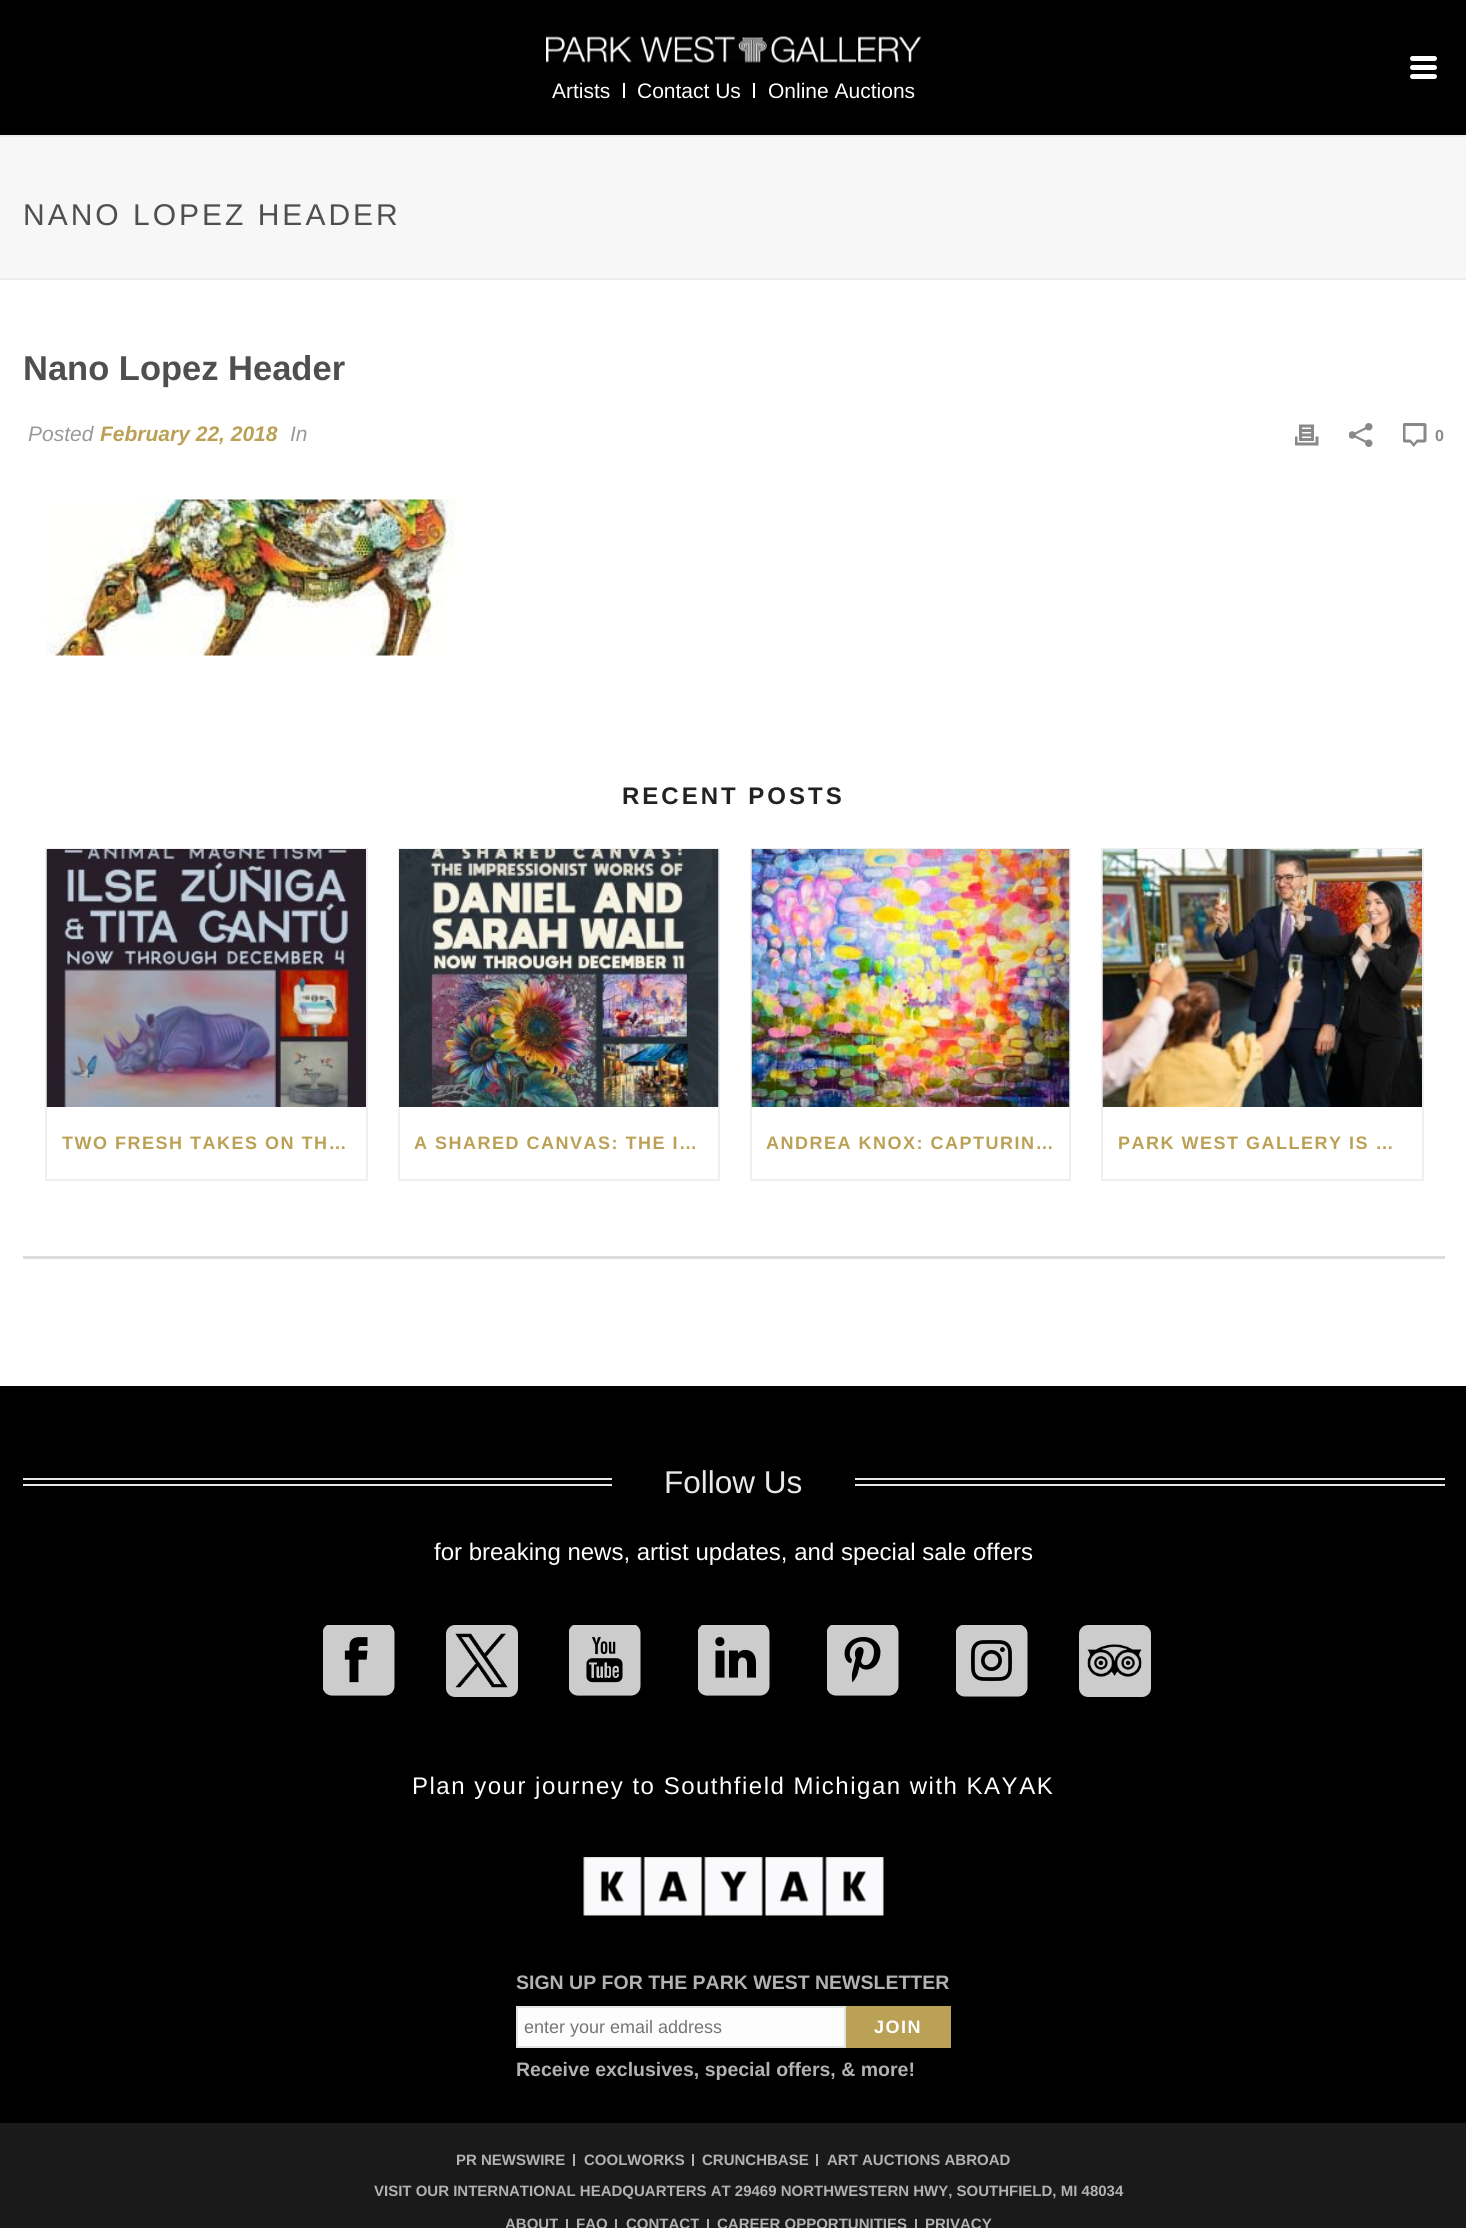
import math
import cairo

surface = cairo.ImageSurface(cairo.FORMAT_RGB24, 1466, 2228)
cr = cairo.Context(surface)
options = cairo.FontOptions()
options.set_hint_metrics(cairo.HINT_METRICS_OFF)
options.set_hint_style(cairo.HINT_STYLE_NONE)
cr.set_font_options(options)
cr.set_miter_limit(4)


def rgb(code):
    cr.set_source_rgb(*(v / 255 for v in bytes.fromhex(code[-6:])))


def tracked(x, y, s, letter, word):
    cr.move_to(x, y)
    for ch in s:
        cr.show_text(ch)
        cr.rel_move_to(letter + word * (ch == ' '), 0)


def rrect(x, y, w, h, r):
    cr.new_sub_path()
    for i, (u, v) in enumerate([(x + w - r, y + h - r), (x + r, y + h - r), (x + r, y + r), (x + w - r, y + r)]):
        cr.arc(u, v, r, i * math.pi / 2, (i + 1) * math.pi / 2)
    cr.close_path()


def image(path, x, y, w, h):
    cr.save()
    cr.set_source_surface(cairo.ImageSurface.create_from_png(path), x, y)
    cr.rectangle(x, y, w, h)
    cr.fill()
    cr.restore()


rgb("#ffffff")
cr.paint()
for x, y, w, h, color in [
    (0, 137, 1466, 141, "#f7f7f7"),
    (0, 278, 1466, 2, "#ededed"),
    (0, 135, 1466, 2, "#ededed"),
    (0, 0, 1466, 135, "#000000"),
]:
    rgb(color)
    cr.rectangle(x, y, w, h)
    cr.fill()
image("img/1.png", 546, 36, 375, 27)
rgb("#ffffff")
rrect(1410, 56, 27, 5, 2.5)
cr.fill()
rrect(1410, 65, 27, 5, 2.5)
cr.fill()
rrect(1410, 74, 27, 5, 2.5)
cr.fill()
cr.rectangle(623, 83, 2, 15)
cr.fill()
cr.rectangle(753, 83, 2, 15)
cr.fill()
image("img/2.png", 1295, 424, 24, 22)
image("img/3.png", 1349, 423, 24, 24)
image("img/4.png", 1403, 423, 24, 24)
image("img/5.png", 46, 499, 411, 157)
rgb("#dddddd")
cr.rectangle(23, 1256, 1422, 3)
cr.fill()
cr.rectangle(46, 849, 321, 331)
rgb("#efefef")
cr.stroke()
image("img/6.png", 46, 849, 320, 258)
cr.rectangle(399, 849, 320, 331)
cr.stroke()
image("img/7.png", 399, 849, 320, 258)
cr.rectangle(751, 849, 319, 331)
cr.stroke()
image("img/8.png", 751, 849, 319, 258)
cr.rectangle(1102, 849, 321, 331)
cr.stroke()
image("img/9.png", 1102, 849, 320, 258)
for x, y, w, h, color in [
    (0, 1386, 1466, 737, "#000000"),
    (23, 1478, 589, 2, "#e8e8e8"),
    (23, 1484, 589, 2, "#e8e8e8"),
    (855, 1478, 590, 2, "#e8e8e8"),
    (855, 1484, 590, 2, "#e8e8e8"),
]:
    rgb(color)
    cr.rectangle(x, y, w, h)
    cr.fill()
image("img/10.png", 323, 1625, 72, 71)
rgb("#cccccc")
rrect(446, 1625, 72, 72, 9)
cr.fill()
image("img/11.png", 455, 1633, 53, 55)
image("img/12.png", 569, 1625, 72, 71)
image("img/13.png", 698, 1625, 72, 71)
image("img/14.png", 827, 1625, 72, 71)
image("img/15.png", 956, 1625, 72, 72)
rrect(1079, 1625, 72, 72, 9)
cr.fill()
image("img/16.png", 1087, 1644, 55, 33)
image("img/17.png", 583, 1857, 301, 59)
rgb("#fdfdfd")
cr.rectangle(517, 2007, 328, 40)
cr.fill_preserve()
rgb("#e3e3e3")
cr.stroke()
for x, y, w, h, color in [
    (846, 2006, 105, 42, "#bba156"),
    (0, 2123, 1466, 105, "#1a1a1a"),
    (573, 2154, 2, 12, "#b2b2b2"),
    (692, 2154, 2, 12, "#b2b2b2"),
    (816, 2154, 2, 12, "#b2b2b2"),
    (566, 2219, 2, 9, "#b2b2b2"),
    (615, 2219, 2, 9, "#b2b2b2"),
    (707, 2219, 2, 9, "#b2b2b2"),
    (915, 2219, 2, 9, "#b2b2b2"),
]:
    rgb(color)
    cr.rectangle(x, y, w, h)
    cr.fill()
cr.select_font_face("Liberation Sans")
cr.set_font_size(21)
rgb("#ffffff")
for x, y, s in [
    (552, 98, "Artists"),
    (637, 98, "Contact Us"),
    (768, 98, "Online Auctions"),
]:
    cr.move_to(x, y)
    cr.show_text(s)
cr.set_font_size(30)
rgb("#4f4f4f")
tracked(23, 225, "NANO LOPEZ HEADER", 3, 0)
cr.select_font_face("Liberation Sans", cairo.FONT_SLANT_NORMAL, cairo.FONT_WEIGHT_BOLD)
cr.set_font_size(34.5)
cr.move_to(23, 380)
cr.show_text("Nano Lopez Header")
cr.select_font_face("Liberation Sans", cairo.FONT_SLANT_ITALIC)
cr.set_font_size(21)
rgb("#999999")
cr.move_to(28, 441)
cr.show_text("Posted")
cr.select_font_face("Liberation Sans", cairo.FONT_SLANT_ITALIC, cairo.FONT_WEIGHT_BOLD)
rgb("#bba156")
cr.move_to(100, 441)
cr.show_text("February 22, 2018")
cr.select_font_face("Liberation Sans", cairo.FONT_SLANT_ITALIC)
rgb("#999999")
cr.move_to(290, 441)
cr.show_text("In")
cr.select_font_face("Liberation Sans", cairo.FONT_SLANT_NORMAL, cairo.FONT_WEIGHT_BOLD)
cr.set_font_size(16)
rgb("#898989")
cr.move_to(1435, 441)
cr.show_text("0")
cr.set_font_size(24)
rgb("#222222")
tracked(622, 804, "RECENT POSTS", 3, 0)
cr.set_font_size(18)
rgb("#bba156")
for x, y, s in [
    (62, 1149, "TWO FRESH TAKES ON TH…"),
    (414, 1149, "A SHARED CANVAS: THE I…"),
    (766, 1149, "ANDREA KNOX: CAPTURIN…"),
    (1118, 1149, "PARK WEST GALLERY IS …"),
]:
    tracked(x, y, s, 1.5, 0)
cr.select_font_face("Liberation Sans")
cr.set_font_size(31.5)
rgb("#e8e8e8")
cr.move_to(664, 1493)
cr.show_text("Follow Us")
cr.set_font_size(24)
rgb("#ffffff")
cr.move_to(434, 1560)
cr.show_text("for breaking news, artist updates, and special sale offers")
tracked(412, 1794, "Plan your journey to Southfield Michigan with KAYAK", 1.5, 0)
cr.select_font_face("Liberation Sans", cairo.FONT_SLANT_NORMAL, cairo.FONT_WEIGHT_BOLD)
cr.set_font_size(19.5)
rgb("#b2b2b2")
cr.move_to(516, 1989)
cr.show_text("SIGN UP FOR THE PARK WEST NEWSLETTER")
cr.select_font_face("Liberation Sans")
cr.set_font_size(18)
rgb("#757575")
cr.move_to(524, 2033)
cr.show_text("enter your email address")
cr.select_font_face("Liberation Sans", cairo.FONT_SLANT_NORMAL, cairo.FONT_WEIGHT_BOLD)
rgb("#ffffff")
tracked(874, 2033, "JOIN", 1.5, 0)
cr.set_font_size(19.5)
rgb("#b2b2b2")
cr.move_to(516, 2076)
cr.show_text("Receive exclusives, special offers, & more!")
cr.set_font_size(15)
for x, y, s in [
    (456, 2165, "PR NEWSWIRE"),
    (584, 2165, "COOLWORKS"),
    (702, 2165, "CRUNCHBASE"),
    (827, 2165, "ART AUCTIONS ABROAD"),
    (374, 2196, "VISIT OUR INTERNATIONAL HEADQUARTERS AT 29469 NORTHWESTERN HWY, SOUTHFIELD, MI 48034"),
    (505, 2229, "ABOUT"),
    (576, 2229, "FAQ"),
    (626, 2229, "CONTACT"),
    (717, 2229, "CAREER OPPORTUNITIES"),
    (925, 2229, "PRIVACY"),
]:
    cr.move_to(x, y)
    cr.show_text(s)
surface.write_to_png("page.png")
